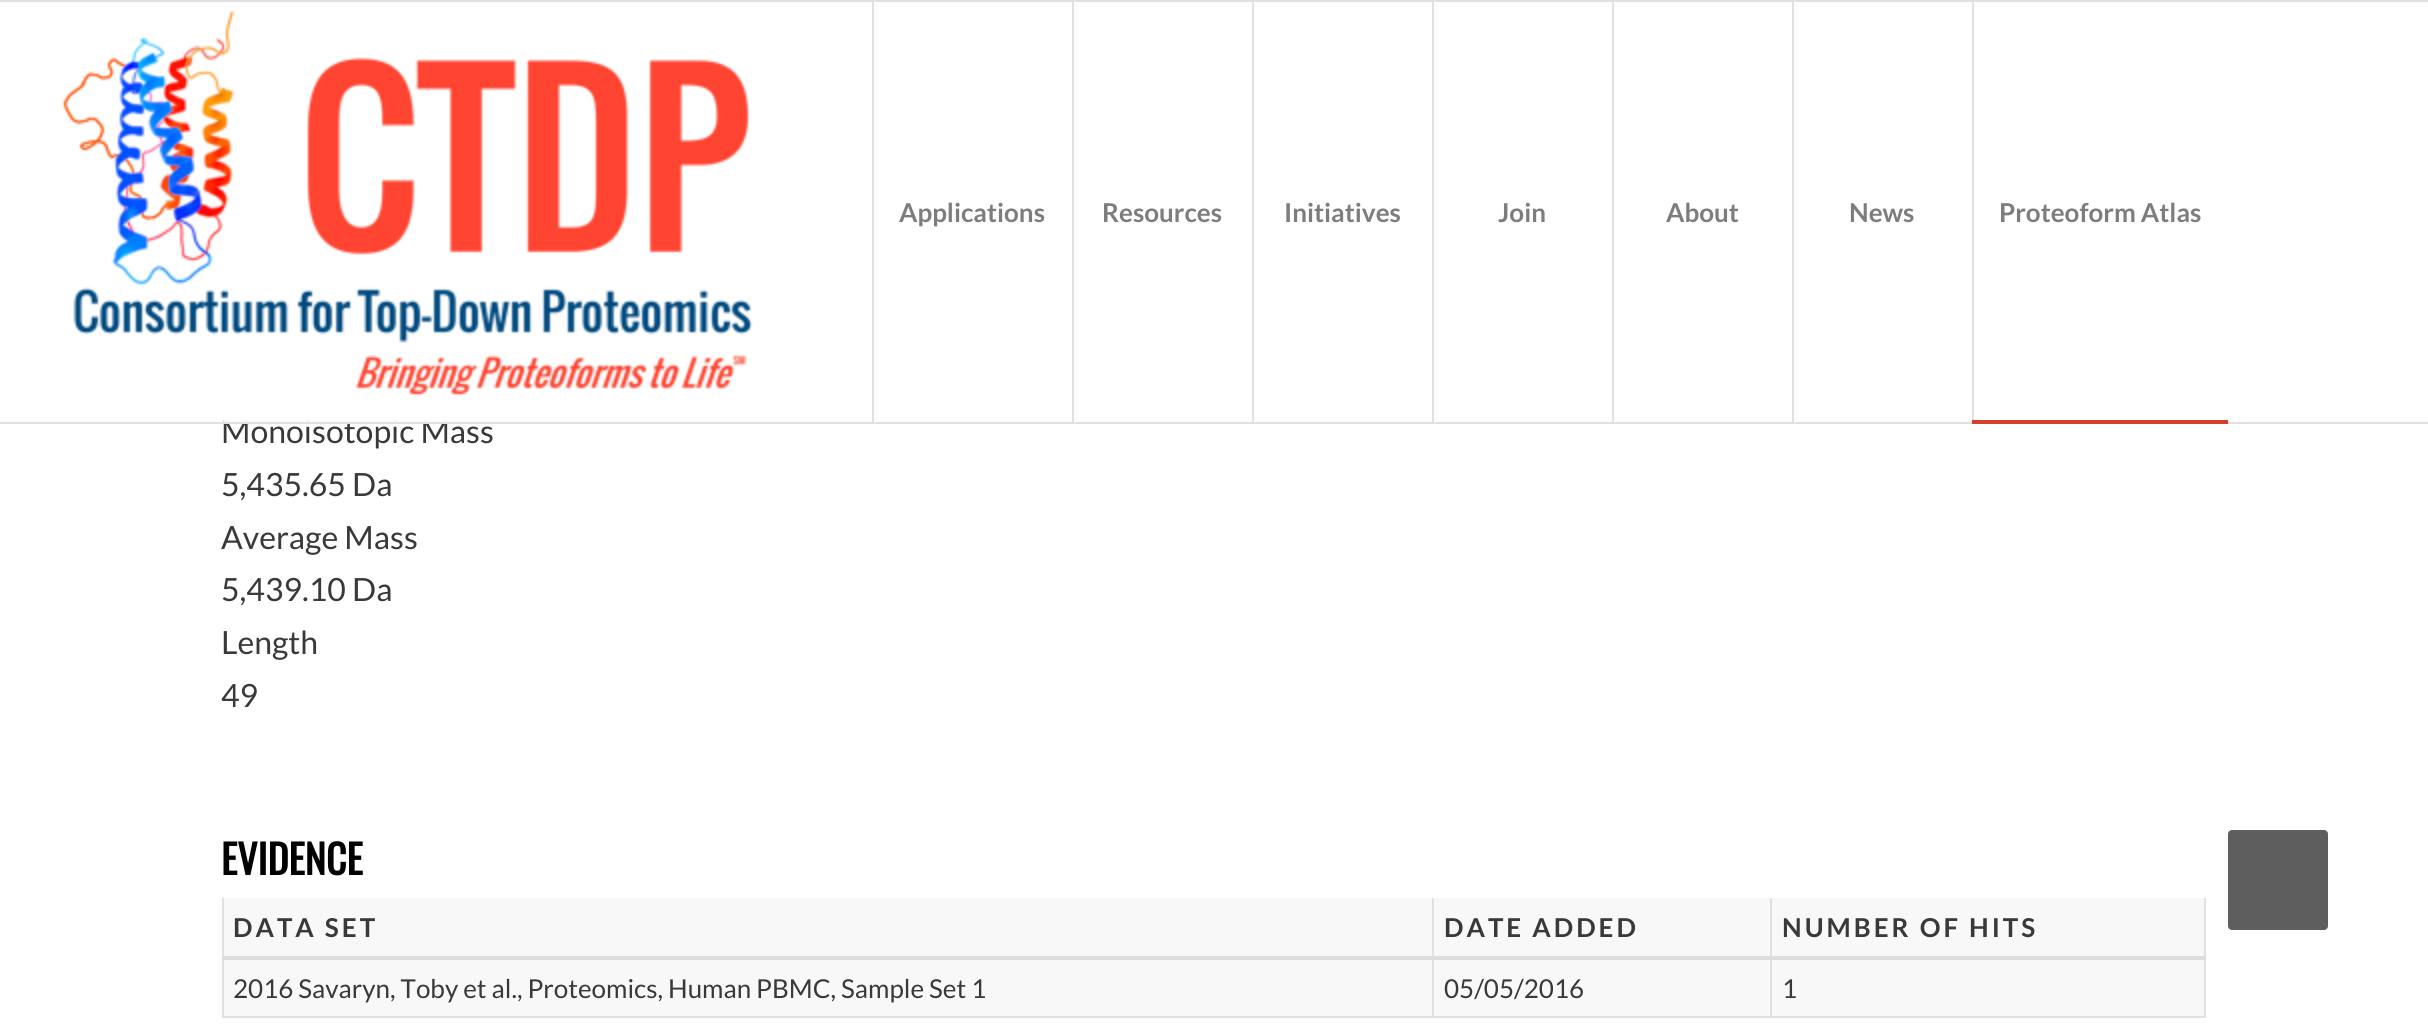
import math
import cairo

surface = cairo.ImageSurface(cairo.FORMAT_RGB24, 2428, 1029)
cr = cairo.Context(surface)
options = cairo.FontOptions()
options.set_hint_metrics(cairo.HINT_METRICS_OFF)
options.set_hint_style(cairo.HINT_STYLE_NONE)
cr.set_font_options(options)
cr.set_miter_limit(4)


def rgb(code):
    cr.set_source_rgb(*(v / 255 for v in bytes.fromhex(code[-6:])))


def tracked(x, y, s, letter, word):
    cr.move_to(x, y)
    for ch in s:
        cr.show_text(ch)
        cr.rel_move_to(letter + word * (ch == ' '), 0)


def rrect(x, y, w, h, r):
    cr.new_sub_path()
    for i, (u, v) in enumerate([(x + w - r, y + h - r), (x + r, y + h - r), (x + r, y + r), (x + w - r, y + r)]):
        cr.arc(u, v, r, i * math.pi / 2, (i + 1) * math.pi / 2)
    cr.close_path()


def image(path, x, y, w, h):
    cr.save()
    cr.set_source_surface(cairo.ImageSurface.create_from_png(path), x, y)
    cr.rectangle(x, y, w, h)
    cr.fill()
    cr.restore()


rgb("#ffffff")
cr.paint()
rgb("#e1e1e1")
cr.rectangle(0, 0, 2428, 2)
cr.fill()
image("img/1.png", 62, 9, 691, 388)
for x, y, w, h, color in [
    (872, 2, 2, 420, "#e1e1e1"),
    (1072, 2, 2, 420, "#e1e1e1"),
    (1252, 2, 2, 420, "#e1e1e1"),
    (1432, 2, 2, 420, "#e1e1e1"),
    (1612, 2, 2, 420, "#e1e1e1"),
    (1792, 2, 2, 420, "#e1e1e1"),
    (1972, 2, 2, 420, "#e1e1e1"),
    (224, 898, 1980, 118, "#f8f8f8"),
    (2204, 898, 2, 120, "#e1e1e1"),
    (1770, 1016, 436, 2, "#e1e1e1"),
    (1770, 898, 2, 120, "#e1e1e1"),
    (1432, 1016, 340, 2, "#e1e1e1"),
    (1432, 898, 2, 120, "#e1e1e1"),
    (222, 1016, 1212, 2, "#e1e1e1"),
    (222, 898, 2, 120, "#e1e1e1"),
    (222, 956, 1984, 4, "#dddddd"),
]:
    rgb(color)
    cr.rectangle(x, y, w, h)
    cr.fill()
rgb("#5e5e5e")
rrect(2229, 831, 98, 98, 3)
cr.fill_preserve()
cr.stroke()
cr.select_font_face("Lato", cairo.FONT_SLANT_NORMAL, cairo.FONT_WEIGHT_BOLD)
cr.set_font_size(26)
rgb("#7d7d7d")
for x, y, s in [
    (899, 222, "Applications"),
    (1102, 222, "Resources"),
    (1284, 222, "Initiatives"),
    (1498, 222, "Join"),
    (1666, 222, "About"),
    (1849, 222, "News"),
    (1999, 222, "Proteoform Atlas"),
]:
    cr.move_to(x, y)
    cr.show_text(s)
cr.select_font_face("Lato")
cr.set_font_size(32)
rgb("#393939")
cr.move_to(221, 443)
cr.show_text("Monoisotopic Mass")
rgb("#e1e1e1")
cr.rectangle(0, 422, 2428, 2)
cr.fill()
rgb("#d63e2d")
cr.rectangle(1972, 420, 256, 4)
cr.fill()
cr.set_source_rgba(1, 1, 1, 0.95)
cr.rectangle(224, 419, 224, 3)
cr.fill()
rgb("#393939")
for x, y, s in [
    (221, 496, "5,435.65 Da"),
    (221, 549, "Average Mass"),
    (221, 601, "5,439.10 Da"),
    (221, 654, "Length"),
    (221, 707, "49"),
]:
    cr.move_to(x, y)
    cr.show_text(s)
cr.select_font_face("Oswald", cairo.FONT_SLANT_NORMAL, cairo.FONT_WEIGHT_BOLD)
cr.set_font_size(40)
rgb("#000000")
cr.move_to(221, 875)
cr.show_text("EVIDENCE")
cr.select_font_face("Lato", cairo.FONT_SLANT_NORMAL, cairo.FONT_WEIGHT_BOLD)
cr.set_font_size(26)
rgb("#393939")
for x, y, s in [
    (233, 937, "DATA SET"),
    (1444, 937, "DATE ADDED"),
    (1782, 937, "NUMBER OF HITS"),
]:
    tracked(x, y, s, 3, 0)
cr.select_font_face("Lato")
for x, y, s in [
    (233, 998, "2016 Savaryn, Toby et al., Proteomics, Human PBMC, Sample Set 1"),
    (1444, 998, "05/05/2016"),
    (1782, 998, "1"),
]:
    cr.move_to(x, y)
    cr.show_text(s)
surface.write_to_png("page.png")
